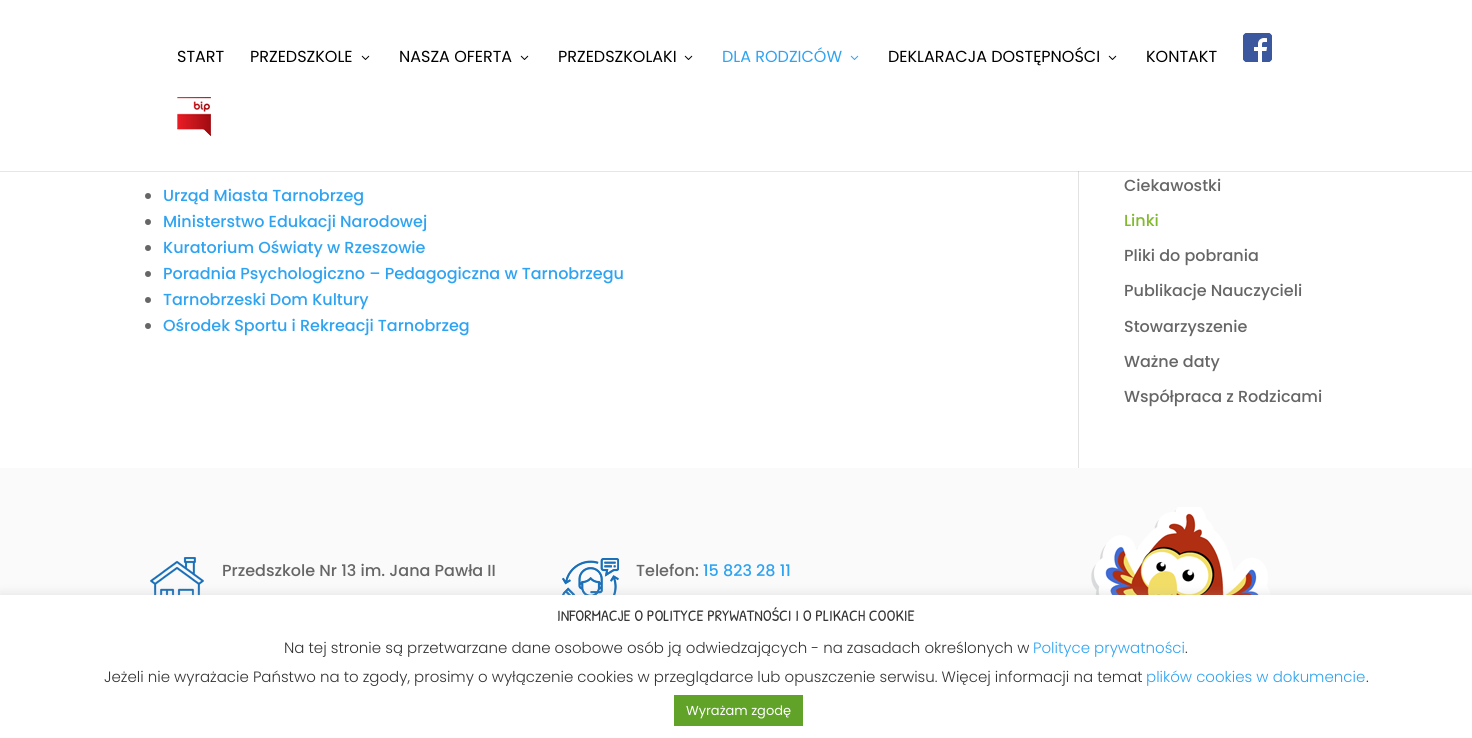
import math
import cairo

surface = cairo.ImageSurface(cairo.FORMAT_RGB24, 1472, 738)
cr = cairo.Context(surface)
options = cairo.FontOptions()
options.set_hint_metrics(cairo.HINT_METRICS_OFF)
options.set_hint_style(cairo.HINT_STYLE_NONE)
cr.set_font_options(options)
cr.set_miter_limit(4)


def rgb(code):
    cr.set_source_rgb(*(v / 255 for v in bytes.fromhex(code[-6:])))


def rrect(x, y, w, h, r):
    cr.new_sub_path()
    for i, (u, v) in enumerate([(x + w - r, y + h - r), (x + r, y + h - r), (x + r, y + r), (x + w - r, y + r)]):
        cr.arc(u, v, r, i * math.pi / 2, (i + 1) * math.pi / 2)
    cr.close_path()


def soft_shadow(x, y, w, h, r, blur, alpha):
    cr.push_group_with_content(cairo.CONTENT_ALPHA)
    cr.set_operator(cairo.OPERATOR_SOURCE)
    for i in range(15, -16, -2):
        e = blur * i / 6
        if min(w, h) + 2 * e > 0:
            cr.set_source_rgba(0, 0, 0, alpha * math.erfc((i - 1) / 8.5) / 2)
            rrect(x - e, y - e, w + 2 * e, h + 2 * e, max(0, min(r + e + blur * .6, min(w, h) / 2 + e)))
            cr.fill()
    cr.mask(cr.pop_group())


def image(path, x, y, w, h):
    cr.save()
    cr.set_source_surface(cairo.ImageSurface.create_from_png(path), x, y)
    cr.rectangle(x, y, w, h)
    cr.fill()
    cr.restore()


rgb("#ffffff")
cr.paint()
rgb("#e6e6e6")
cr.rectangle(0, 171, 1472, 1)
cr.fill()
image("img/1.png", 361, 55, 9, 5)
image("img/1.png", 520, 55, 9, 5)
image("img/1.png", 684, 55, 9, 5)
image("img/2.png", 850, 55, 9, 5)
image("img/1.png", 1108, 55, 9, 5)
image("img/3.png", 1243, 33, 29, 29)
image("img/4.png", 177, 97, 34, 39)
rgb("#e2e2e2")
cr.rectangle(1078, 172, 1, 296)
cr.fill()
rgb("#cbcbcb")
cr.rectangle(1078, 171, 1, 1)
cr.fill()
rgb("#666666")
cr.arc(148, 196, 3, 0, 2 * math.pi)
cr.fill()
cr.arc(148, 222, 3, 0, 2 * math.pi)
cr.fill()
cr.arc(148, 248, 3, 0, 2 * math.pi)
cr.fill()
cr.arc(148, 274, 3, 0, 2 * math.pi)
cr.fill()
cr.arc(148, 300, 3, 0, 2 * math.pi)
cr.fill()
cr.arc(148, 326, 3, 0, 2 * math.pi)
cr.fill()
rgb("#fafafa")
cr.rectangle(0, 468, 1472, 127)
cr.fill()
image("img/5.png", 150, 557, 54, 38)
image("img/6.png", 562, 558, 57, 37)
image("img/7.png", 1091, 507, 180, 88)
rgb("#acabab")
soft_shadow(0, 594, 1472, 143, 0, 5, 0.3)
rgb("#ffffff")
cr.rectangle(0, 595, 1472, 143)
cr.fill()
rgb("#61a229")
cr.rectangle(674, 695, 129, 31)
cr.fill()
cr.select_font_face("Poppins")
cr.set_font_size(16)
rgb("#000000")
for x, y, s in [
    (177, 62, "START"),
    (250, 62, "PRZEDSZKOLE"),
    (399, 62, "NASZA OFERTA"),
    (558, 62, "PRZEDSZKOLAKI"),
]:
    cr.move_to(x, y)
    cr.show_text(s)
rgb("#2ea3f2")
cr.move_to(722, 62)
cr.show_text("DLA RODZICÓW")
rgb("#000000")
cr.move_to(888, 62)
cr.show_text("DEKLARACJA DOSTĘPNOŚCI")
cr.move_to(1146, 62)
cr.show_text("KONTAKT")
cr.select_font_face("Poppins Medium")
rgb("#2ea3f2")
for x, y, s in [
    (163, 201, "Urząd Miasta Tarnobrzeg"),
    (163, 227, "Ministerstwo Edukacji Narodowej"),
    (163, 253, "Kuratorium Oświaty w Rzeszowie"),
    (163, 279, "Poradnia Psychologiczno – Pedagogiczna w Tarnobrzegu"),
    (163, 305, "Tarnobrzeski Dom Kultury"),
    (163, 331, "Ośrodek Sportu i Rekreacji Tarnobrzeg"),
]:
    cr.move_to(x, y)
    cr.show_text(s)
rgb("#666666")
cr.move_to(1124, 191)
cr.show_text("Ciekawostki")
rgb("#83b92f")
cr.move_to(1124, 226)
cr.show_text("Linki")
rgb("#666666")
for x, y, s in [
    (1124, 261, "Pliki do pobrania"),
    (1124, 296, "Publikacje Nauczycieli"),
    (1124, 332, "Stowarzyszenie"),
    (1124, 367, "Ważne daty"),
    (1124, 402, "Współpraca z Rodzicami"),
    (222, 576, "Przedszkole Nr 13 im. Jana Pawła II"),
    (636, 576, "Telefon:"),
]:
    cr.move_to(x, y)
    cr.show_text(s)
rgb("#2ea3f2")
cr.move_to(703, 576)
cr.show_text("15 823 28 11")
cr.select_font_face("Patrick Hand")
rgb("#333333")
cr.move_to(557, 621)
cr.show_text("INFORMACJE O POLITYCE PRYWATNOŚCI I O PLIKACH COOKIE")
cr.select_font_face("Poppins Light")
cr.set_font_size(15)
cr.move_to(284, 653)
cr.show_text("Na tej stronie są przetwarzane dane osobowe osób ją odwiedzających - na zasadach określonych w")
rgb("#2ea3f2")
cr.move_to(1033, 653)
cr.show_text("Polityce prywatności")
rgb("#333333")
cr.move_to(1185, 653)
cr.show_text(".")
cr.move_to(104, 682)
cr.show_text("Jeżeli nie wyrażacie Państwo na to zgody, prosimy o wyłączenie cookies w przeglądarce lub opuszczenie serwisu. Więcej informacji na temat")
rgb("#2ea3f2")
cr.move_to(1146, 682)
cr.show_text("plików cookies w dokumencie")
rgb("#333333")
cr.move_to(1366, 682)
cr.show_text(".")
cr.select_font_face("Poppins")
cr.set_font_size(13)
rgb("#ffffff")
cr.move_to(686, 715)
cr.show_text("Wyrażam zgodę")
surface.write_to_png("page.png")
